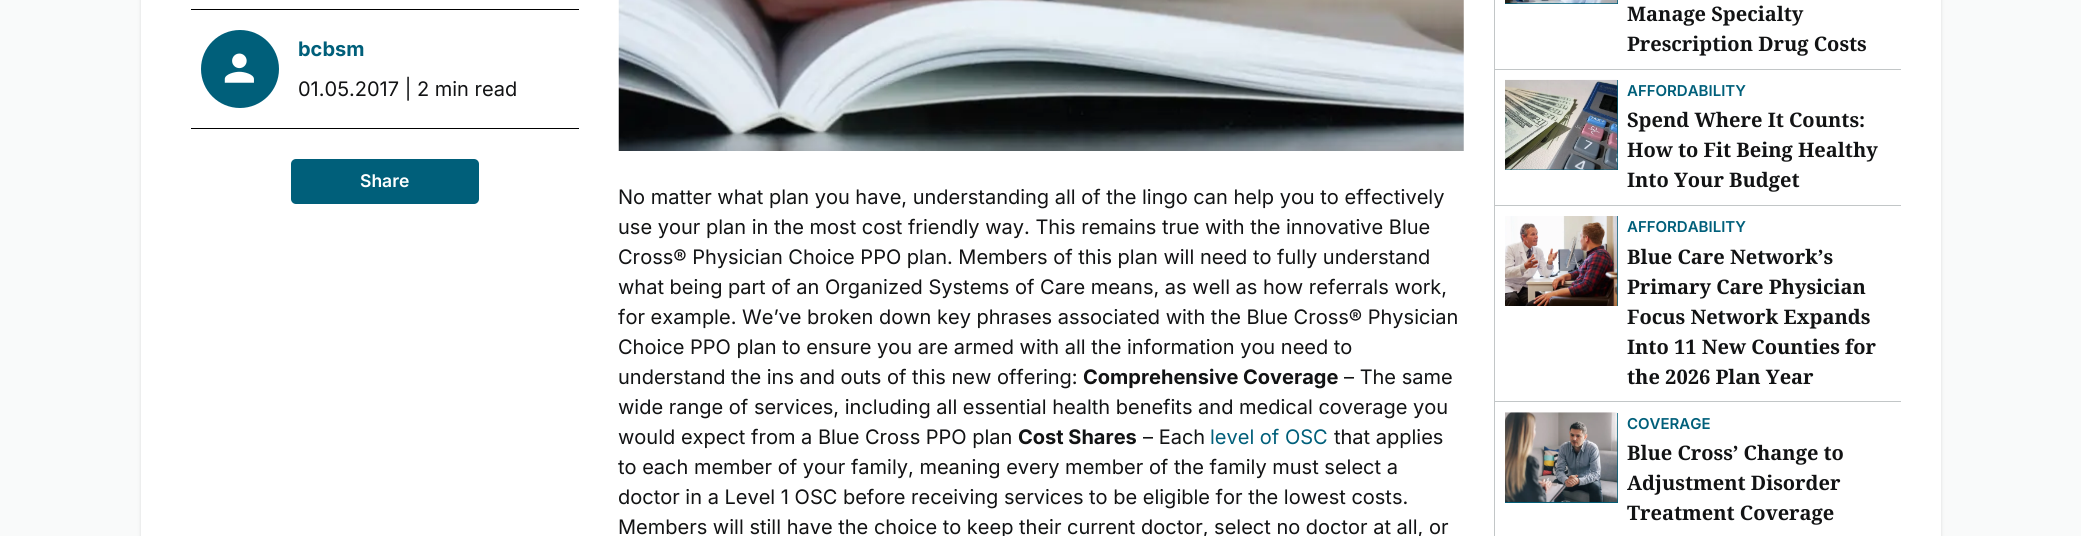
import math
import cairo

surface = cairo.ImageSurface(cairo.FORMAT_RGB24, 2081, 536)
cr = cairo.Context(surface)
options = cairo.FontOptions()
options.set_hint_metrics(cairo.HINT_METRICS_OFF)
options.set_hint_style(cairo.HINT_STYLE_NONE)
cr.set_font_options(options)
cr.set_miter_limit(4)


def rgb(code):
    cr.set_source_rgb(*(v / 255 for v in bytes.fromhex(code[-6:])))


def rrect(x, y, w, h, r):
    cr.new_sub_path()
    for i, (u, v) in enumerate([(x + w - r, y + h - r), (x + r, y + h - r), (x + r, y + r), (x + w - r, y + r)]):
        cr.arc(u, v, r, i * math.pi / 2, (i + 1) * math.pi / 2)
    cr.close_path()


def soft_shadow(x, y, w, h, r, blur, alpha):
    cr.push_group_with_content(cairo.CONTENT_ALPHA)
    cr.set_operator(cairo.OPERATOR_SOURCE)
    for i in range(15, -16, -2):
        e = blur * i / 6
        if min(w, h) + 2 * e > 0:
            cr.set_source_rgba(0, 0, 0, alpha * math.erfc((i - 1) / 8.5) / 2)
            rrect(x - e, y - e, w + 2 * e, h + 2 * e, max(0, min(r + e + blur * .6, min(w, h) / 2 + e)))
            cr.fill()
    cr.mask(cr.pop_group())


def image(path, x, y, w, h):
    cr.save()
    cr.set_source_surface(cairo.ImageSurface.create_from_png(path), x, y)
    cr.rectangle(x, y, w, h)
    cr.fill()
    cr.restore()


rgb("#f9fafa")
cr.paint()
rgb("#000000")
soft_shadow(141, -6, 1800, 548, 0, 2, 0.12)
for x, y, w, h, color in [
    (141, 0, 1800, 536, "#ffffff"),
    (191, 9, 388, 1, "#000000"),
    (191, 128, 388, 1, "#000000"),
]:
    rgb(color)
    cr.rectangle(x, y, w, h)
    cr.fill()
rgb("#005f7a")
cr.arc(240, 69, 39, 0, 2 * math.pi)
cr.fill()
image("img/1.png", 224, 53, 30, 30)
rrect(291, 159, 188, 45, 5)
cr.fill()
rgb("#c2c6c7")
cr.rectangle(1494, 0, 1, 536)
cr.fill()
rgb("#005f7a")
cr.rectangle(1505, 0, 113, 4)
cr.fill()
image("img/2.png", 1505, 0, 113, 4)
rgb("#c2c6c7")
cr.rectangle(1495, 69, 406, 1)
cr.fill()
rgb("#005f7a")
cr.rectangle(1505, 80, 113, 90)
cr.fill()
image("img/3.png", 1505, 79, 113, 91)
rgb("#c2c6c7")
cr.rectangle(1495, 205, 406, 1)
cr.fill()
rgb("#005f7a")
cr.rectangle(1617, 216, 1, 90)
cr.fill()
image("img/4.png", 1505, 216, 113, 90)
rgb("#c2c6c7")
cr.rectangle(1495, 401, 406, 1)
cr.fill()
rgb("#005f7a")
cr.rectangle(1505, 413, 113, 90)
cr.fill()
image("img/5.png", 1505, 412, 113, 91)
image("img/6.png", 618, 0, 846, 151)
cr.select_font_face("Inter", cairo.FONT_SLANT_NORMAL, cairo.FONT_WEIGHT_BOLD)
cr.set_font_size(20)
cr.move_to(298, 56)
cr.show_text("bcbsm")
cr.select_font_face("Inter")
rgb("#121314")
cr.move_to(298, 96)
cr.show_text("01.05.2017 | 2 min read")
cr.select_font_face("Inter SemiBold")
cr.set_font_size(17.5)
rgb("#ffffff")
cr.move_to(360, 187)
cr.show_text("Share")
cr.select_font_face("Noto Serif", cairo.FONT_SLANT_NORMAL, cairo.FONT_WEIGHT_BOLD)
cr.set_font_size(20)
rgb("#121314")
cr.move_to(1627, 21)
cr.show_text("Manage Specialty")
cr.move_to(1627, 51)
cr.show_text("Prescription Drug Costs")
cr.select_font_face("Inter SemiBold")
cr.set_font_size(15)
rgb("#005f7a")
cr.move_to(1627, 96)
cr.show_text("AFFORDABILITY")
cr.select_font_face("Noto Serif", cairo.FONT_SLANT_NORMAL, cairo.FONT_WEIGHT_BOLD)
cr.set_font_size(20)
rgb("#121314")
for x, y, s in [
    (1627, 127, "Spend Where It Counts:"),
    (1627, 157, "How to Fit Being Healthy"),
    (1627, 187, "Into Your Budget"),
]:
    cr.move_to(x, y)
    cr.show_text(s)
cr.select_font_face("Inter SemiBold")
cr.set_font_size(15)
rgb("#005f7a")
cr.move_to(1627, 232)
cr.show_text("AFFORDABILITY")
cr.select_font_face("Noto Serif", cairo.FONT_SLANT_NORMAL, cairo.FONT_WEIGHT_BOLD)
cr.set_font_size(20)
rgb("#121314")
for x, y, s in [
    (1627, 264, "Blue Care Network’s"),
    (1627, 294, "Primary Care Physician"),
    (1627, 324, "Focus Network Expands"),
    (1627, 354, "Into 11 New Counties for"),
    (1627, 384, "the 2026 Plan Year"),
]:
    cr.move_to(x, y)
    cr.show_text(s)
cr.select_font_face("Inter SemiBold")
cr.set_font_size(15)
rgb("#005f7a")
cr.move_to(1627, 429)
cr.show_text("COVERAGE")
cr.select_font_face("Noto Serif", cairo.FONT_SLANT_NORMAL, cairo.FONT_WEIGHT_BOLD)
cr.set_font_size(20)
rgb("#121314")
for x, y, s in [
    (1627, 460, "Blue Cross’ Change to"),
    (1627, 490, "Adjustment Disorder"),
    (1627, 520, "Treatment Coverage"),
]:
    cr.move_to(x, y)
    cr.show_text(s)
cr.select_font_face("Inter")
for x, y, s in [
    (618, 204, "No matter what plan you have, understanding all of the lingo can help you to effectively"),
    (618, 234, "use your plan in the most cost friendly way. This remains true with the innovative Blue"),
    (618, 264, "Cross® Physician Choice PPO plan. Members of this plan will need to fully understand"),
    (618, 294, "what being part of an Organized Systems of Care means, as well as how referrals work,"),
    (618, 324, "for example. We’ve broken down key phrases associated with the Blue Cross® Physician"),
    (618, 354, "Choice PPO plan to ensure you are armed with all the information you need to"),
    (618, 384, "understand the ins and outs of this new offering:"),
]:
    cr.move_to(x, y)
    cr.show_text(s)
cr.select_font_face("Inter", cairo.FONT_SLANT_NORMAL, cairo.FONT_WEIGHT_BOLD)
cr.move_to(1083, 384)
cr.show_text("Comprehensive Coverage")
cr.select_font_face("Inter")
for x, y, s in [
    (1344, 384, "– The same"),
    (618, 414, "wide range of services, including all essential health benefits and medical coverage you"),
    (618, 444, "would expect from a Blue Cross PPO plan"),
]:
    cr.move_to(x, y)
    cr.show_text(s)
cr.select_font_face("Inter", cairo.FONT_SLANT_NORMAL, cairo.FONT_WEIGHT_BOLD)
cr.move_to(1018, 444)
cr.show_text("Cost Shares")
cr.select_font_face("Inter")
cr.move_to(1143, 444)
cr.show_text("– Each")
rgb("#005f7a")
cr.move_to(1210, 444)
cr.show_text("level of OSC")
rgb("#121314")
for x, y, s in [
    (1334, 444, "that applies"),
    (618, 474, "to each member of your family, meaning every member of the family must select a"),
    (618, 504, "doctor in a Level 1 OSC before receiving services to be eligible for the lowest costs."),
    (618, 534, "Members will still have the choice to keep their current doctor, select no doctor at all, or"),
]:
    cr.move_to(x, y)
    cr.show_text(s)
surface.write_to_png("page.png")
